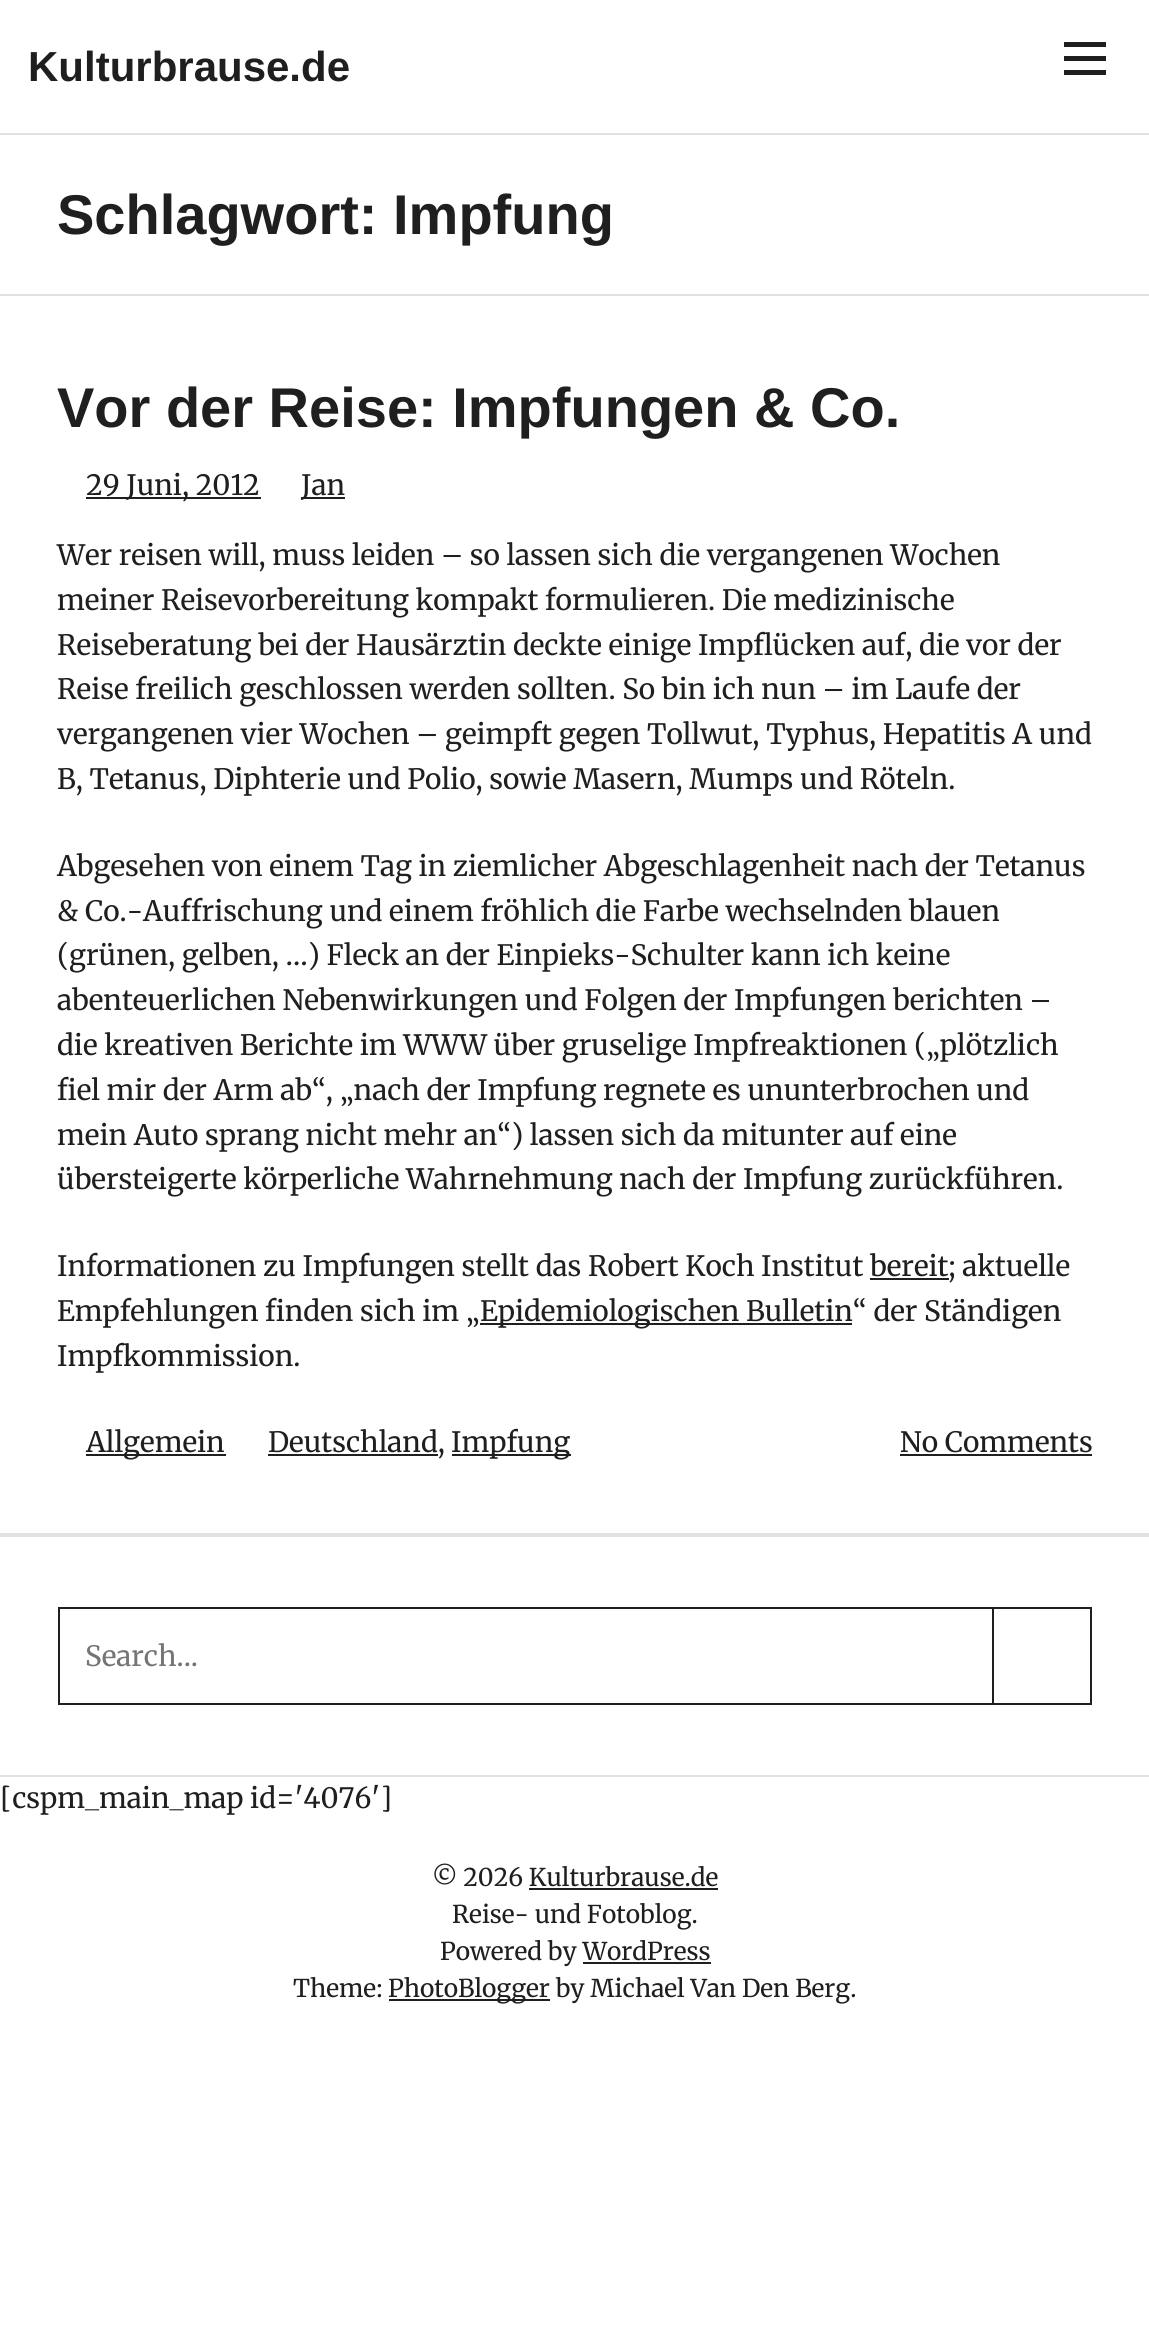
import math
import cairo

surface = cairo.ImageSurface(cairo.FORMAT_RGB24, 1149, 2326)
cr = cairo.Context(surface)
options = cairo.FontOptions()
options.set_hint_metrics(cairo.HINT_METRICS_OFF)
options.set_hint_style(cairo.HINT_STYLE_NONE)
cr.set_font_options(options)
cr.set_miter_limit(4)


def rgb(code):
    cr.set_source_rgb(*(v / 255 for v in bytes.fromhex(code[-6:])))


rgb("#ffffff")
cr.paint()
for x, y, w, h, color in [
    (0, 133, 1149, 2, "#e1e1e1"),
    (1064, 56, 42, 5, "#1f1f1f"),
    (1064, 42, 42, 5, "#1f1f1f"),
    (1064, 70, 42, 5, "#1f1f1f"),
    (0, 294, 1149, 2, "#e1e1e1"),
    (0, 1533, 1149, 4, "#e1e1e1"),
    (86, 497, 175, 2, "#1f1f1f"),
    (301, 497, 44, 2, "#1f1f1f"),
    (870, 1278, 79, 2, "#1f1f1f"),
    (480, 1323, 372, 2, "#1f1f1f"),
    (86, 1454, 140, 2, "#1f1f1f"),
    (268, 1454, 170, 2, "#1f1f1f"),
    (452, 1454, 119, 2, "#1f1f1f"),
    (900, 1454, 192, 2, "#1f1f1f"),
    (0, 1775, 1149, 2, "#e1e1e1"),
]:
    rgb(color)
    cr.rectangle(x, y, w, h)
    cr.fill()
cr.rectangle(59, 1608, 1032, 96)
rgb("#1f1f1f")
cr.stroke()
for x, y, w, h, color in [
    (992, 1608, 2, 95, "#1f1f1f"),
    (529, 1888, 189, 2, "#1f1f1f"),
    (583, 1962, 128, 2, "#1f1f1f"),
    (389, 1999, 161, 2, "#1f1f1f"),
]:
    rgb(color)
    cr.rectangle(x, y, w, h)
    cr.fill()
cr.select_font_face("Liberation Sans", cairo.FONT_SLANT_NORMAL, cairo.FONT_WEIGHT_BOLD)
cr.set_font_size(42)
cr.move_to(28, 81)
cr.show_text("Kulturbrause.de")
cr.set_font_size(56)
cr.move_to(57, 234)
cr.show_text("Schlagwort: Impfung")
cr.move_to(57, 427)
cr.show_text("Vor der Reise: Impfungen & Co.")
cr.select_font_face("Merriweather")
cr.set_font_size(28)
for x, y, s in [
    (86, 495, "29 Juni, 2012"),
    (301, 495, "Jan"),
    (57, 565, "Wer reisen will, muss leiden – so lassen sich die vergangenen Wochen"),
    (57, 610, "meiner Reisevorbereitung kompakt formulieren. Die medizinische"),
    (57, 655, "Reiseberatung bei der Hausärztin deckte einige Impflücken auf, die vor der"),
    (57, 699, "Reise freilich geschlossen werden sollten. So bin ich nun – im Laufe der"),
    (57, 744, "vergangenen vier Wochen – geimpft gegen Tollwut, Typhus, Hepatitis A und"),
    (57, 789, "B, Tetanus, Diphterie und Polio, sowie Masern, Mumps und Röteln."),
    (57, 876, "Abgesehen von einem Tag in ziemlicher Abgeschlagenheit nach der Tetanus"),
    (57, 921, "& Co.-Auffrischung und einem fröhlich die Farbe wechselnden blauen"),
    (57, 965, "(grünen, gelben, …) Fleck an der Einpieks-Schulter kann ich keine"),
    (57, 1010, "abenteuerlichen Nebenwirkungen und Folgen der Impfungen berichten –"),
    (57, 1055, "die kreativen Berichte im WWW über gruselige Impfreaktionen („plötzlich"),
    (57, 1100, "fiel mir der Arm ab“, „nach der Impfung regnete es ununterbrochen und"),
    (57, 1145, "mein Auto sprang nicht mehr an“) lassen sich da mitunter auf eine"),
    (57, 1189, "übersteigerte körperliche Wahrnehmung nach der Impfung zurückführen."),
    (57, 1276, "Informationen zu Impfungen stellt das Robert Koch Institut bereit; aktuelle"),
    (57, 1321, "Empfehlungen finden sich im „"),
    (480, 1321, "Epidemiologischen Bulletin“ der Ständigen"),
    (57, 1366, "Impfkommission."),
    (86, 1452, "Allgemein"),
    (268, 1452, "Deutschland,"),
    (451, 1452, "Impfung"),
    (900, 1452, "No Comments"),
]:
    cr.move_to(x, y)
    cr.show_text(s)
rgb("#757575")
cr.move_to(85, 1666)
cr.show_text("Search...")
rgb("#1f1f1f")
cr.move_to(0, 1808)
cr.show_text("[cspm_main_map id='4076']")
cr.set_font_size(24.5)
for x, y, s in [
    (432, 1886, "© 2026 Kulturbrause.de"),
    (452, 1923, "Reise- und Fotoblog."),
    (440, 1960, "Powered by WordPress"),
    (293, 1997, "Theme:"),
    (388, 1997, "PhotoBlogger by Michael Van Den Berg."),
]:
    cr.move_to(x, y)
    cr.show_text(s)
surface.write_to_png("page.png")
